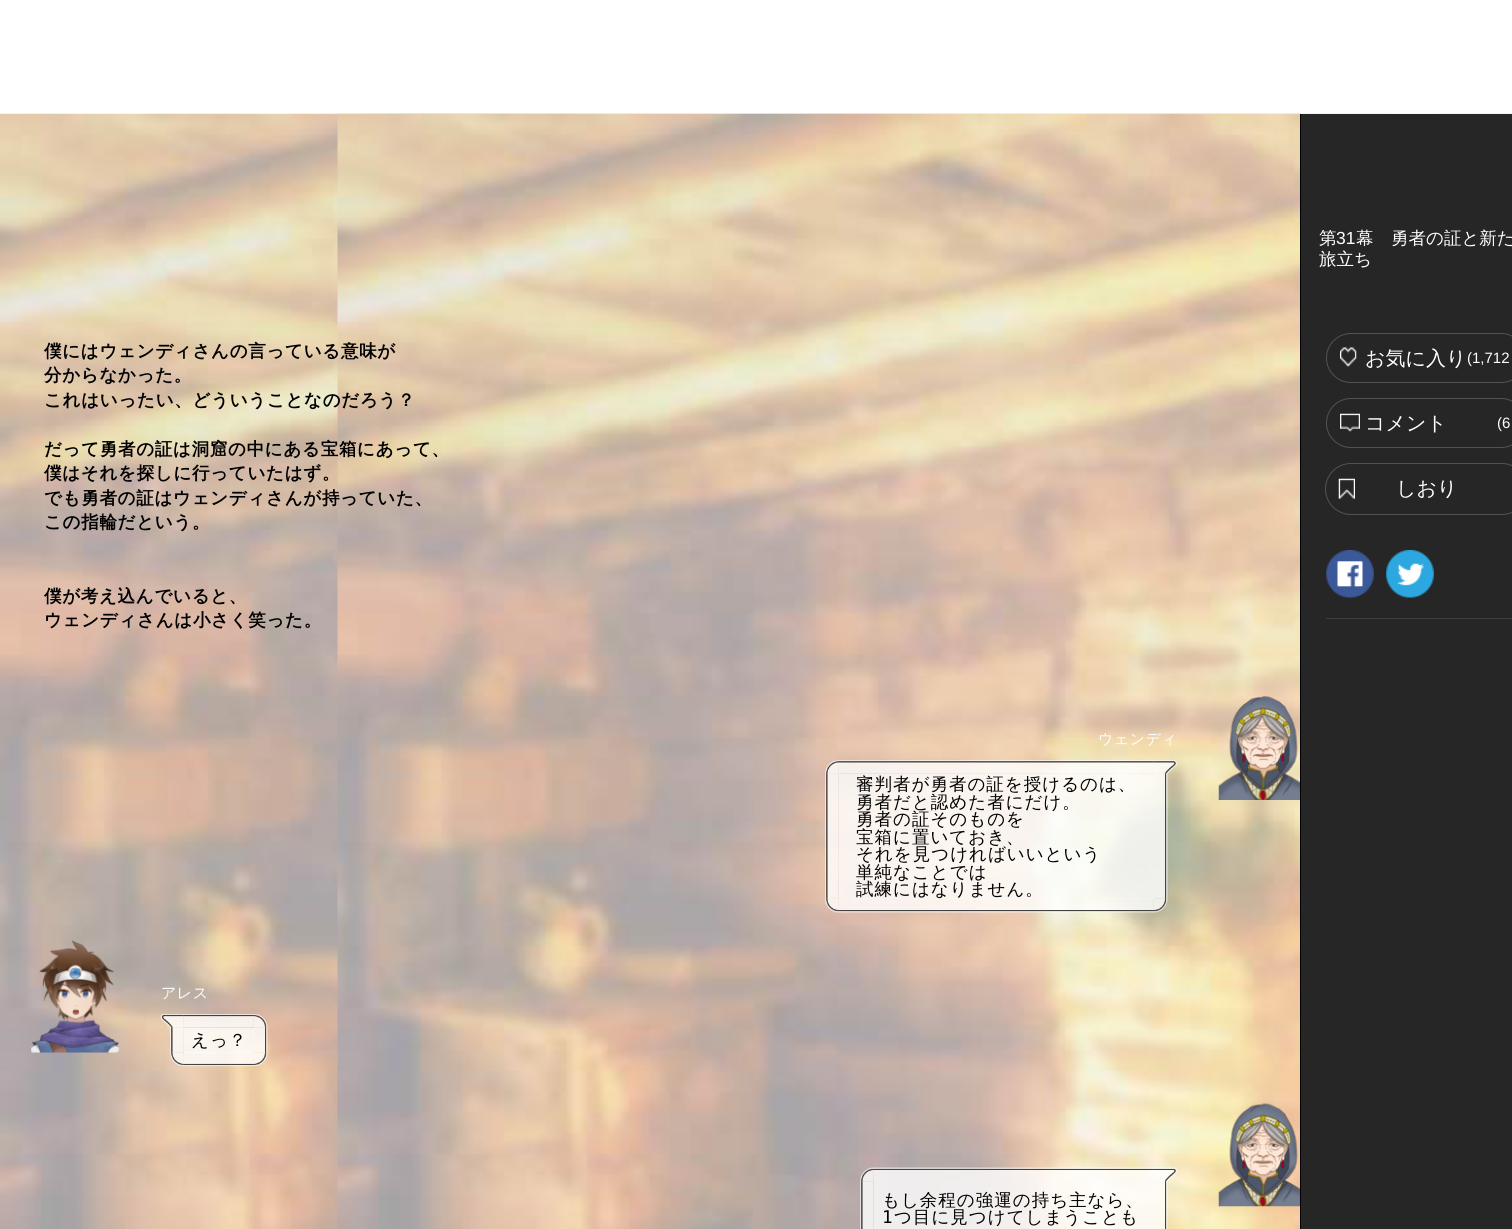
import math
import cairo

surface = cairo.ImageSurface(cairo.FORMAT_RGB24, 1512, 1229)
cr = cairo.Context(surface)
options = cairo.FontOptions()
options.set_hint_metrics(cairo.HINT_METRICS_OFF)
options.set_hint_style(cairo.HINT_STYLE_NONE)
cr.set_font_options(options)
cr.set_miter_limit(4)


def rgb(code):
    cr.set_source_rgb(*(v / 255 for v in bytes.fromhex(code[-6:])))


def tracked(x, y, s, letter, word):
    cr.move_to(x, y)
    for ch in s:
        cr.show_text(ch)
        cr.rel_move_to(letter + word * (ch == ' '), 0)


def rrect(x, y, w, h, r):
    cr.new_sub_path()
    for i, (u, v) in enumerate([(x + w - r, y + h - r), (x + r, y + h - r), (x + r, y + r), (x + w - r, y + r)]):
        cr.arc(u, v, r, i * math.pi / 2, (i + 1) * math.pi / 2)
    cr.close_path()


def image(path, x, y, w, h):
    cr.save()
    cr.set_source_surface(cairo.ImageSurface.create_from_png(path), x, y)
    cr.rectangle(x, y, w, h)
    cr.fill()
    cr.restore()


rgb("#ffffff")
cr.paint()
image("img/1.png", 0, 113, 1300, 1116)
image("img/2.png", 337, 113, 1175, 1116)
image("img/6.png", 825, 773, 14, 126)
image("img/3.png", 825, 760, 14, 14)
image("img/4.png", 838, 760, 316, 14)
image("img/7.png", 1154, 773, 14, 126)
image("img/5.png", 1153, 760, 24, 14)
cr.set_source_rgba(1, 1, 1, 0.8)
cr.rectangle(839, 774, 315, 125)
cr.fill()
image("img/8.png", 825, 898, 14, 15)
image("img/11.png", 1218, 696, 82, 104)
image("img/12.png", 31, 940, 88, 113)
image("img/16.png", 170, 1027, 14, 26)
image("img/13.png", 160, 1014, 24, 14)
cr.rectangle(184, 1028, 70, 25)
cr.fill()
image("img/17.png", 253, 1027, 15, 26)
image("img/14.png", 183, 1014, 71, 14)
image("img/15.png", 253, 1014, 15, 14)
image("img/18.png", 170, 1052, 14, 15)
image("img/19.png", 183, 1052, 71, 15)
image("img/20.png", 253, 1052, 15, 15)
image("img/24.png", 860, 1181, 14, 48)
image("img/21.png", 860, 1167, 14, 15)
image("img/22.png", 873, 1167, 281, 14)
cr.rectangle(874, 1181, 280, 48)
cr.fill()
image("img/25.png", 1154, 1181, 14, 48)
image("img/23.png", 1153, 1167, 24, 15)
image("img/26.png", 1218, 1103, 82, 104)
rgb("#262626")
cr.rectangle(1301, 114, 211, 1115)
cr.fill()
rgb("#000000")
cr.rectangle(1300, 114, 1, 1115)
cr.fill()
rrect(1326.5, 333.5, 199, 49, 24.5)
rgb("#525252")
cr.set_line_width(1)
cr.stroke()
image("img/27.png", 1340, 347, 17, 20)
rrect(1326.5, 398.5, 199, 49, 24.5)
cr.stroke()
image("img/28.png", 1340, 413, 20, 19)
rrect(1325.5, 463.5, 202, 51, 25.5)
cr.stroke()
image("img/29.png", 1338, 478, 17, 21)
rgb("#3e3e3e")
cr.rectangle(1326, 618, 186, 1)
cr.fill()
image("img/30.png", 1326, 550, 48, 48)
image("img/31.png", 1386, 550, 48, 48)
cr.select_font_face("WenQuanYi Zen Hei", cairo.FONT_SLANT_NORMAL, cairo.FONT_WEIGHT_BOLD)
cr.set_font_size(17.5)
rgb("#000000")
for x, y, s in [
    (44, 357, "僕にはウェンディさんの言っている意味が"),
    (44, 381, "分からなかった。"),
    (44, 406, "これはいったい、どういうことなのだろう？"),
    (44, 455, "だって勇者の証は洞窟の中にある宝箱にあって、"),
    (44, 479, "僕はそれを探しに行っていたはず。"),
    (44, 504, "でも勇者の証はウェンディさんが持っていた、"),
    (44, 528, "この指輪だという。"),
    (44, 602, "僕が考え込んでいると、"),
    (44, 626, "ウェンディさんは小さく笑った。"),
]:
    tracked(x, y, s, 0.7, 0)
cr.select_font_face("WenQuanYi Zen Hei Medium")
cr.set_font_size(15)
rgb("#ffffff")
tracked(1098, 744, "ウェンディ", 0.5, 0)
cr.set_font_size(17.5)
rgb("#000000")
for x, y, s in [
    (856, 790, "審判者が勇者の証を授けるのは、"),
    (856, 808, "勇者だと認めた者にだけ。"),
    (856, 825, "勇者の証そのものを"),
    (856, 843, "宝箱に置いておき、"),
    (856, 860, "それを見つければいいという"),
    (856, 878, "単純なことでは"),
    (856, 895, "試練にはなりません。"),
]:
    tracked(x, y, s, 1, 0)
image("img/9.png", 838, 898, 316, 15)
image("img/10.png", 1153, 898, 15, 15)
cr.set_font_size(15)
rgb("#ffffff")
tracked(161, 998, "アレス", 0.5, 0)
cr.set_font_size(17.5)
rgb("#000000")
tracked(191, 1046, "えっ？", 1, 0)
tracked(882, 1206, "もし余程の強運の持ち主なら、", 1, 0)
cr.select_font_face("DejaVu Sans Mono")
tracked(882, 1223, "1", 1, 0)
cr.select_font_face("WenQuanYi Zen Hei Medium")
tracked(894, 1223, "つ目に見つけてしまうことも", 1, 0)
rgb("#ffffff")
cr.move_to(1319, 244)
cr.show_text("第")
cr.select_font_face("Liberation Sans")
cr.move_to(1336, 244)
cr.show_text("31")
cr.select_font_face("WenQuanYi Zen Hei Medium")
cr.move_to(1356, 244)
cr.show_text("幕　勇者の証と新た")
cr.move_to(1319, 265)
cr.show_text("旅立ち")
cr.set_font_size(20)
cr.move_to(1365, 365)
cr.show_text("お気に入り")
cr.select_font_face("Liberation Sans")
cr.set_font_size(15)
cr.move_to(1467, 363)
cr.show_text("(1,712")
cr.select_font_face("WenQuanYi Zen Hei Medium")
cr.set_font_size(20)
cr.move_to(1365, 430)
cr.show_text("コメント")
cr.select_font_face("Liberation Sans")
cr.set_font_size(15)
cr.move_to(1497, 428)
cr.show_text("(6")
cr.select_font_face("WenQuanYi Zen Hei Medium")
cr.set_font_size(20)
cr.move_to(1396, 495)
cr.show_text("しおり")
surface.write_to_png("page.png")
